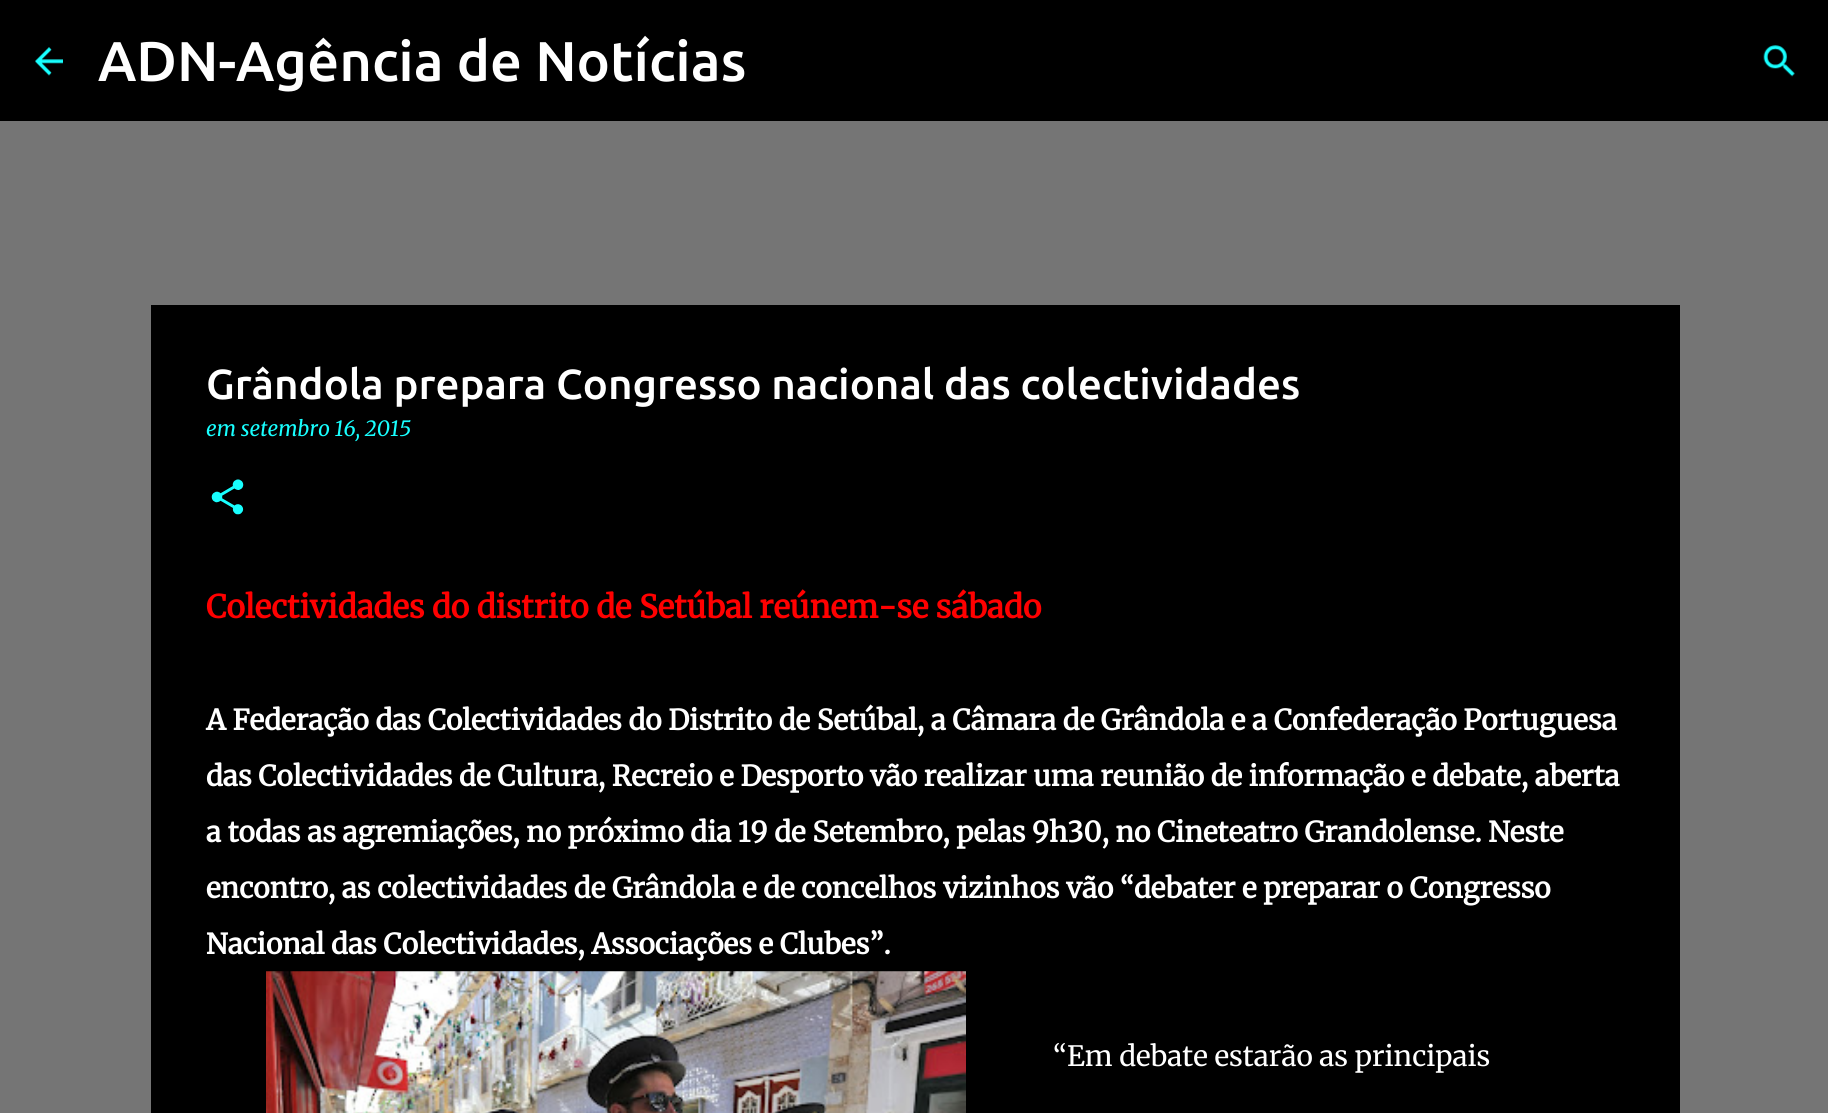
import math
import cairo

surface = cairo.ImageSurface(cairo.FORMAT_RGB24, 1828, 1113)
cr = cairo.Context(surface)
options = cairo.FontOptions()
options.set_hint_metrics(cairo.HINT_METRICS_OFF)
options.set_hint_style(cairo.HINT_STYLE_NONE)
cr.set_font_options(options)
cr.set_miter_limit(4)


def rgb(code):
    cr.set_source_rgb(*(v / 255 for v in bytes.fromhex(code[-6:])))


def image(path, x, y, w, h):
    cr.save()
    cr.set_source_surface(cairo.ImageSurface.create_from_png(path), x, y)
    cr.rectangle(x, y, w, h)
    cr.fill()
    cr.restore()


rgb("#757575")
cr.paint()
rgb("#000000")
cr.rectangle(0, 0, 1828, 121)
cr.fill()
image("img/1.png", 35, 47, 28, 29)
image("img/2.png", 1763, 45, 32, 32)
cr.rectangle(151, 305, 1529, 808)
cr.fill()
image("img/3.png", 211, 479, 33, 36)
image("img/4.png", 266, 971, 700, 142)
cr.select_font_face("Ubuntu Medium")
cr.set_font_size(56)
rgb("#ffffff")
cr.move_to(98, 81)
cr.show_text("ADN-Agência de Notícias")
cr.set_font_size(42)
cr.move_to(206, 399)
cr.show_text("Grândola prepara Congresso nacional das colectividades")
cr.select_font_face("Merriweather", cairo.FONT_SLANT_ITALIC)
cr.set_font_size(21)
rgb("#18ffff")
cr.move_to(206, 436)
cr.show_text("em setembro 16, 2015")
cr.select_font_face("Merriweather", cairo.FONT_SLANT_NORMAL, cairo.FONT_WEIGHT_BOLD)
cr.set_font_size(31.5)
rgb("#ff0000")
cr.move_to(206, 618)
cr.show_text("Colectividades do distrito de Setúbal reúnem-se sábado")
cr.set_font_size(28)
rgb("#ffffff")
for x, y, s in [
    (206, 730, "A Federação das Colectividades do Distrito de Setúbal, a Câmara de Grândola e a Confederação Portuguesa"),
    (206, 786, "das Colectividades de Cultura, Recreio e Desporto vão realizar uma reunião de informação e debate, aberta"),
    (206, 842, "a todas as agremiações, no próximo dia 19 de Setembro, pelas 9h30, no Cineteatro Grandolense. Neste"),
    (206, 898, "encontro, as colectividades de Grândola e de concelhos vizinhos vão “debater e preparar o Congresso"),
    (206, 954, "Nacional das Colectividades, Associações e Clubes”."),
]:
    cr.move_to(x, y)
    cr.show_text(s)
cr.select_font_face("Merriweather Light")
cr.move_to(1053, 1066)
cr.show_text("“Em debate estarão as principais")
surface.write_to_png("page.png")
